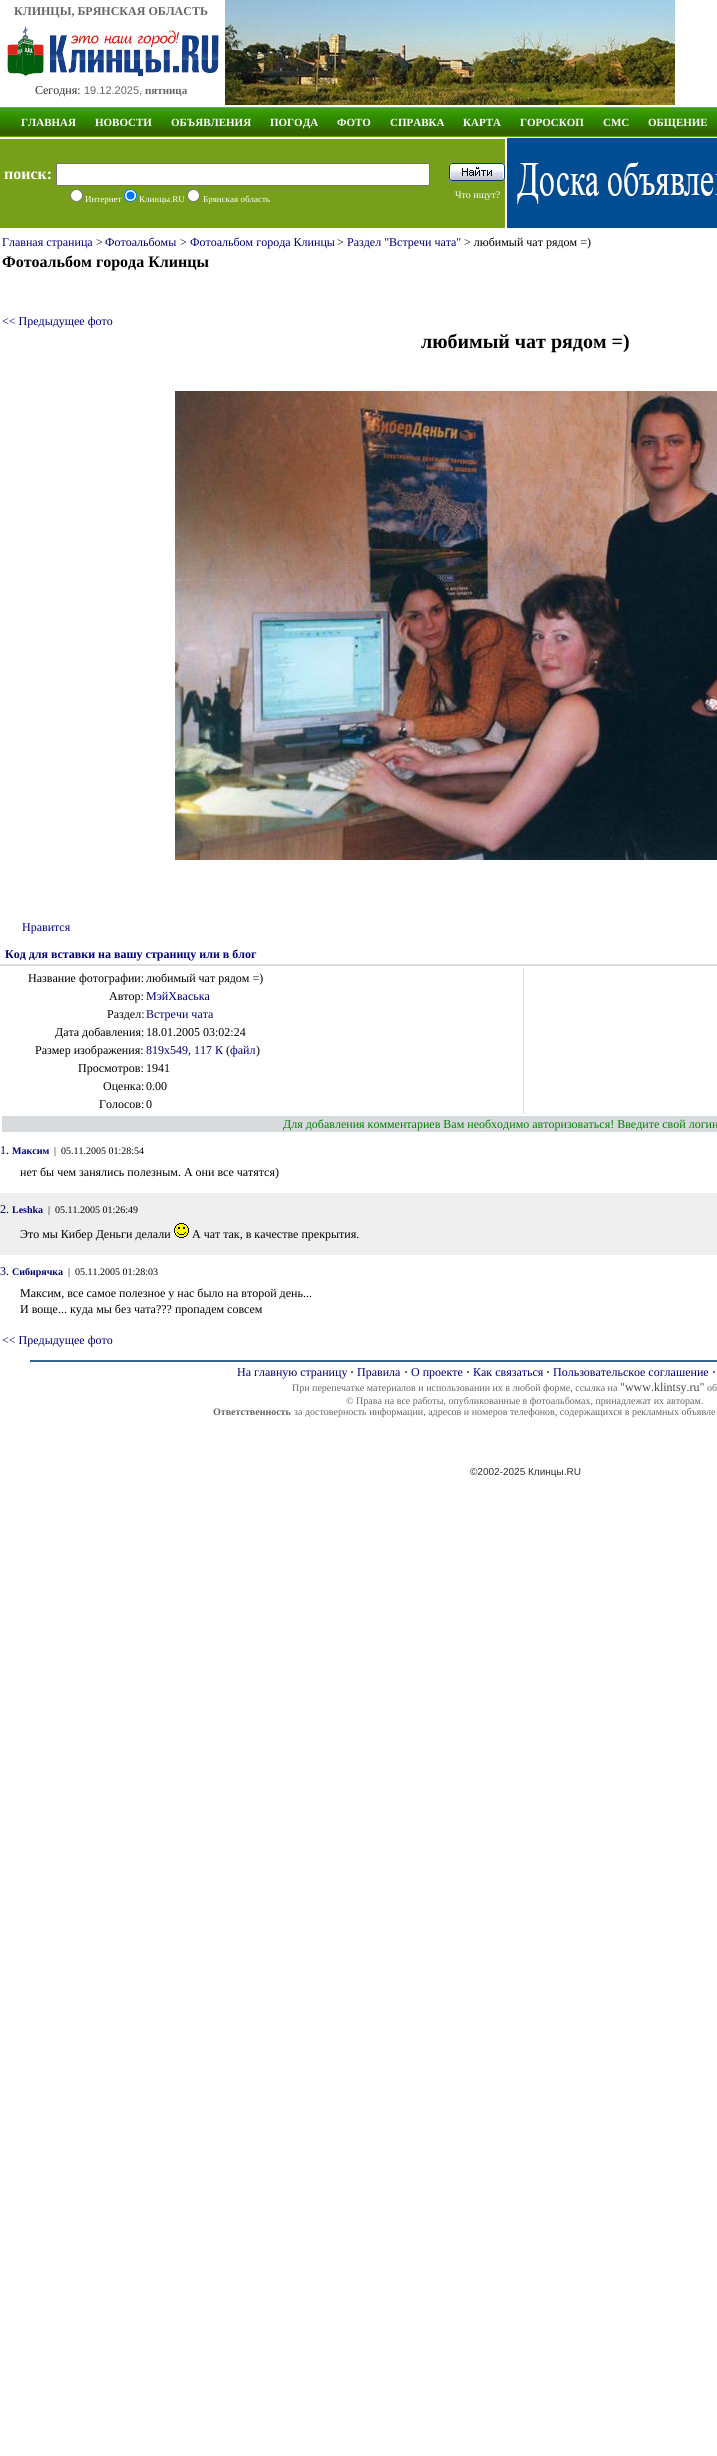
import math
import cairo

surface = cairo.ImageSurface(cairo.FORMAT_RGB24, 717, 2456)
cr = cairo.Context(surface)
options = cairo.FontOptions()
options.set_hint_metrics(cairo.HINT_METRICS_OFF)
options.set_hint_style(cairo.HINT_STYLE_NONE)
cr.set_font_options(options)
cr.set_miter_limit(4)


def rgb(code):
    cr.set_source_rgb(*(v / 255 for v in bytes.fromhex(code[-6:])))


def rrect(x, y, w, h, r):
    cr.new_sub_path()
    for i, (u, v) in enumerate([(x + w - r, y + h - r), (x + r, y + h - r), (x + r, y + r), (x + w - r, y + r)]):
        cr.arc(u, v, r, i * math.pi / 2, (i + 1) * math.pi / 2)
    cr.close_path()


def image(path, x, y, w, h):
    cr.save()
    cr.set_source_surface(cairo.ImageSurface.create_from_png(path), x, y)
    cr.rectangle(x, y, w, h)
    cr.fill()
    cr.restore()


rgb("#ffffff")
cr.paint()
image("img/1.png", 7, 26, 212, 51)
image("img/2.png", 225, 0, 450, 105)
image("img/3.png", 0, 107, 717, 30)
rgb("#779f1a")
cr.rectangle(0, 139, 505, 89)
cr.fill()
rgb("#ffffff")
rrect(56.5, 163.5, 373, 22, 1.5)
cr.fill_preserve()
rgb("#767676")
cr.set_line_width(1)
cr.stroke()
image("img/4.png", 449, 163, 56, 18)
rgb("#ffffff")
cr.arc(76.5, 195.5, 6, 0, 2 * math.pi)
cr.fill_preserve()
rgb("#767676")
cr.stroke()
rgb("#ffffff")
cr.arc(130.5, 195.5, 6, 0, 2 * math.pi)
cr.fill_preserve()
rgb("#0075ff")
cr.stroke()
cr.arc(130.5, 195.5, 4, 0, 2 * math.pi)
cr.fill()
rgb("#ffffff")
cr.arc(193.5, 195.5, 6, 0, 2 * math.pi)
cr.fill_preserve()
rgb("#767676")
cr.stroke()
image("img/5.png", 507, 138, 210, 90)
image("img/6.png", 175, 391, 542, 469)
for x, y, w, h, color in [
    (0, 964, 717, 2, "#dedede"),
    (523, 968, 1, 146, "#dedede"),
    (2, 1116, 715, 16, "#d8dbde"),
    (0, 1193, 717, 62, "#efefef"),
]:
    rgb(color)
    cr.rectangle(x, y, w, h)
    cr.fill()
image("img/7.png", 174, 1223, 15, 15)
rgb("#34648a")
cr.rectangle(30, 1360, 687, 2)
cr.fill()
cr.select_font_face("Liberation Serif", cairo.FONT_SLANT_NORMAL, cairo.FONT_WEIGHT_BOLD)
cr.set_font_size(12)
rgb("#666666")
cr.move_to(14, 15)
cr.show_text("КЛИНЦЫ, БРЯНСКАЯ ОБЛАСТЬ")
cr.select_font_face("Liberation Serif")
rgb("#2e2e2e")
cr.move_to(35, 94)
cr.show_text("Сегодня:")
cr.select_font_face("Liberation Sans")
cr.set_font_size(11)
rgb("#666666")
cr.move_to(84, 94)
cr.show_text("19.12.2025,")
cr.select_font_face("Liberation Serif", cairo.FONT_SLANT_NORMAL, cairo.FONT_WEIGHT_BOLD)
cr.move_to(145, 94)
cr.show_text("пятница")
rgb("#ffffff")
for x, y, s in [
    (21, 126, "ГЛАВНАЯ"),
    (95, 126, "НОВОСТИ"),
    (171, 126, "ОБЪЯВЛЕНИЯ"),
    (270, 126, "ПОГОДА"),
    (337, 126, "ФОТО"),
    (390, 126, "СПРАВКА"),
    (463, 126, "КАРТА"),
    (520, 126, "ГОРОСКОП"),
    (603, 126, "СМС"),
    (648, 126, "ОБЩЕНИЕ"),
]:
    cr.move_to(x, y)
    cr.show_text(s)
cr.set_font_size(16)
cr.move_to(4, 179)
cr.show_text("поиск:")
cr.select_font_face("Liberation Serif")
cr.set_font_size(9)
for x, y, s in [
    (85, 202, "Интернет"),
    (139, 202, "Клинцы.RU"),
    (203, 202, "Брянская область"),
]:
    cr.move_to(x, y)
    cr.show_text(s)
cr.set_font_size(10)
cr.move_to(455, 198)
cr.show_text("Что ищут?")
cr.set_font_size(12)
rgb("#000179")
cr.move_to(2, 246)
cr.show_text("Главная страница")
rgb("#000000")
cr.move_to(96, 246)
cr.show_text(">")
rgb("#000179")
cr.move_to(105, 246)
cr.show_text("Фотоальбомы")
rgb("#000000")
cr.move_to(180, 246)
cr.show_text(">")
rgb("#000179")
cr.move_to(190, 246)
cr.show_text("Фотоальбом города Клинцы")
rgb("#000000")
cr.move_to(337, 246)
cr.show_text(">")
rgb("#000179")
cr.move_to(347, 246)
cr.show_text("Раздел \"Встречи чата\"")
rgb("#000000")
cr.move_to(464, 246)
cr.show_text("> любимый чат рядом =)")
cr.select_font_face("Liberation Serif", cairo.FONT_SLANT_NORMAL, cairo.FONT_WEIGHT_BOLD)
cr.set_font_size(16)
cr.move_to(2, 267)
cr.show_text("Фотоальбом города Клинцы")
cr.select_font_face("Liberation Serif")
cr.set_font_size(12)
rgb("#000179")
cr.move_to(2, 325)
cr.show_text("<< Предыдущее фото")
cr.select_font_face("Liberation Serif", cairo.FONT_SLANT_NORMAL, cairo.FONT_WEIGHT_BOLD)
cr.set_font_size(20)
rgb("#000000")
cr.move_to(421, 348)
cr.show_text("любимый чат рядом =)")
cr.select_font_face("Liberation Serif")
cr.set_font_size(12)
rgb("#000179")
cr.move_to(22, 931)
cr.show_text("Нравится")
cr.select_font_face("Liberation Serif", cairo.FONT_SLANT_NORMAL, cairo.FONT_WEIGHT_BOLD)
cr.move_to(5, 958)
cr.show_text("Код для вставки на вашу страницу или в блог")
cr.select_font_face("Liberation Serif")
rgb("#000000")
for x, y, s in [
    (28, 982, "Название фотографии:"),
    (146, 982, "любимый чат рядом =)"),
    (109, 1000, "Автор:"),
]:
    cr.move_to(x, y)
    cr.show_text(s)
rgb("#000179")
cr.move_to(146, 1000)
cr.show_text("МэйХваська")
rgb("#000000")
cr.move_to(107, 1018)
cr.show_text("Раздел:")
rgb("#000179")
cr.move_to(146, 1018)
cr.show_text("Встречи чата")
rgb("#000000")
for x, y, s in [
    (55, 1036, "Дата добавления:"),
    (146, 1036, "18.01.2005 03:02:24"),
    (35, 1054, "Размер изображения:"),
]:
    cr.move_to(x, y)
    cr.show_text(s)
rgb("#000179")
cr.move_to(146, 1054)
cr.show_text("819x549, 117 К")
rgb("#000000")
cr.move_to(226, 1054)
cr.show_text("(")
rgb("#000179")
cr.move_to(230, 1054)
cr.show_text("файл")
rgb("#000000")
for x, y, s in [
    (256, 1054, ")"),
    (78, 1072, "Просмотров:"),
    (146, 1072, "1941"),
    (103, 1090, "Оценка:"),
    (146, 1090, "0.00"),
    (99, 1108, "Голосов:"),
    (146, 1108, "0"),
]:
    cr.move_to(x, y)
    cr.show_text(s)
rgb("#008000")
cr.move_to(283, 1128)
cr.show_text("Для добавления комментариев Вам необходимо авторизоваться! Введите свой логин")
rgb("#000179")
cr.move_to(0, 1154)
cr.show_text("1")
rgb("#000000")
cr.move_to(6, 1154)
cr.show_text(".")
cr.select_font_face("Liberation Serif", cairo.FONT_SLANT_NORMAL, cairo.FONT_WEIGHT_BOLD)
cr.set_font_size(10)
rgb("#000179")
cr.move_to(12, 1154)
cr.show_text("Максим")
cr.select_font_face("Liberation Serif")
rgb("#000000")
cr.move_to(54, 1154)
cr.show_text("|  05.11.2005 01:28:54")
cr.set_font_size(12)
cr.move_to(20, 1176)
cr.show_text("нет бы чем занялись полезным. А они все чатятся)")
rgb("#000179")
cr.move_to(0, 1213)
cr.show_text("2")
rgb("#000000")
cr.move_to(6, 1213)
cr.show_text(".")
cr.select_font_face("Liberation Serif", cairo.FONT_SLANT_NORMAL, cairo.FONT_WEIGHT_BOLD)
cr.set_font_size(10)
rgb("#000179")
cr.move_to(12, 1213)
cr.show_text("Leshka")
cr.select_font_face("Liberation Serif")
rgb("#000000")
cr.move_to(48, 1213)
cr.show_text("|  05.11.2005 01:26:49")
cr.set_font_size(12)
cr.move_to(20, 1238)
cr.show_text("Это мы Кибер Деньги делали")
cr.move_to(192, 1238)
cr.show_text("А чат так, в качестве прекрытия.")
rgb("#000179")
cr.move_to(0, 1275)
cr.show_text("3")
rgb("#000000")
cr.move_to(6, 1275)
cr.show_text(".")
cr.select_font_face("Liberation Serif", cairo.FONT_SLANT_NORMAL, cairo.FONT_WEIGHT_BOLD)
cr.set_font_size(10)
rgb("#000179")
cr.move_to(12, 1275)
cr.show_text("Сибирячка")
cr.select_font_face("Liberation Serif")
rgb("#000000")
cr.move_to(68, 1275)
cr.show_text("|  05.11.2005 01:28:03")
cr.set_font_size(12)
cr.move_to(20, 1297)
cr.show_text("Максим, все самое полезное у нас было на второй день...")
cr.move_to(20, 1313)
cr.show_text("И воще... куда мы без чата??? пропадем совсем")
rgb("#000179")
cr.move_to(2, 1344)
cr.show_text("<< Предыдущее фото")
cr.move_to(237, 1376)
cr.show_text("На главную страницу")
cr.select_font_face("Liberation Serif", cairo.FONT_SLANT_NORMAL, cairo.FONT_WEIGHT_BOLD)
rgb("#2e2e2e")
cr.move_to(350, 1376)
cr.show_text("·")
cr.select_font_face("Liberation Serif")
rgb("#000179")
cr.move_to(357, 1376)
cr.show_text("Правила")
cr.select_font_face("Liberation Serif", cairo.FONT_SLANT_NORMAL, cairo.FONT_WEIGHT_BOLD)
rgb("#2e2e2e")
cr.move_to(404, 1376)
cr.show_text("·")
cr.select_font_face("Liberation Serif")
rgb("#000179")
cr.move_to(411, 1376)
cr.show_text("О проекте")
cr.select_font_face("Liberation Serif", cairo.FONT_SLANT_NORMAL, cairo.FONT_WEIGHT_BOLD)
rgb("#2e2e2e")
cr.move_to(466, 1376)
cr.show_text("·")
cr.select_font_face("Liberation Serif")
rgb("#000179")
cr.move_to(473, 1376)
cr.show_text("Как связаться")
cr.select_font_face("Liberation Serif", cairo.FONT_SLANT_NORMAL, cairo.FONT_WEIGHT_BOLD)
rgb("#2e2e2e")
cr.move_to(546, 1376)
cr.show_text("·")
cr.select_font_face("Liberation Serif")
rgb("#000179")
cr.move_to(553, 1376)
cr.show_text("Пользовательское соглашение")
cr.select_font_face("Liberation Serif", cairo.FONT_SLANT_NORMAL, cairo.FONT_WEIGHT_BOLD)
rgb("#2e2e2e")
cr.move_to(712, 1376)
cr.show_text("·")
cr.select_font_face("Liberation Serif")
cr.set_font_size(10)
rgb("#666666")
cr.move_to(292, 1391)
cr.show_text("При перепечатке материалов и использовании их в любой форме, ссылка на")
cr.set_font_size(12)
rgb("#484848")
cr.move_to(620, 1391)
cr.show_text("\"www.klintsy.ru\"")
cr.set_font_size(10)
rgb("#666666")
cr.move_to(707, 1391)
cr.show_text("об")
cr.move_to(346, 1404)
cr.show_text("© Права на все работы, опубликованные в фотоальбомах, принадлежат их авторам.")
cr.select_font_face("Liberation Serif", cairo.FONT_SLANT_NORMAL, cairo.FONT_WEIGHT_BOLD)
cr.move_to(213, 1415)
cr.show_text("Ответственность")
cr.select_font_face("Liberation Serif")
cr.move_to(294, 1415)
cr.show_text("за достоверность информации, адресов и номеров телефонов, содержащихся в рекламных объявле")
cr.select_font_face("Liberation Sans")
rgb("#2e2e2e")
cr.move_to(470, 1475)
cr.show_text("©2002-2025 Клинцы.RU")
surface.write_to_png("page.png")
